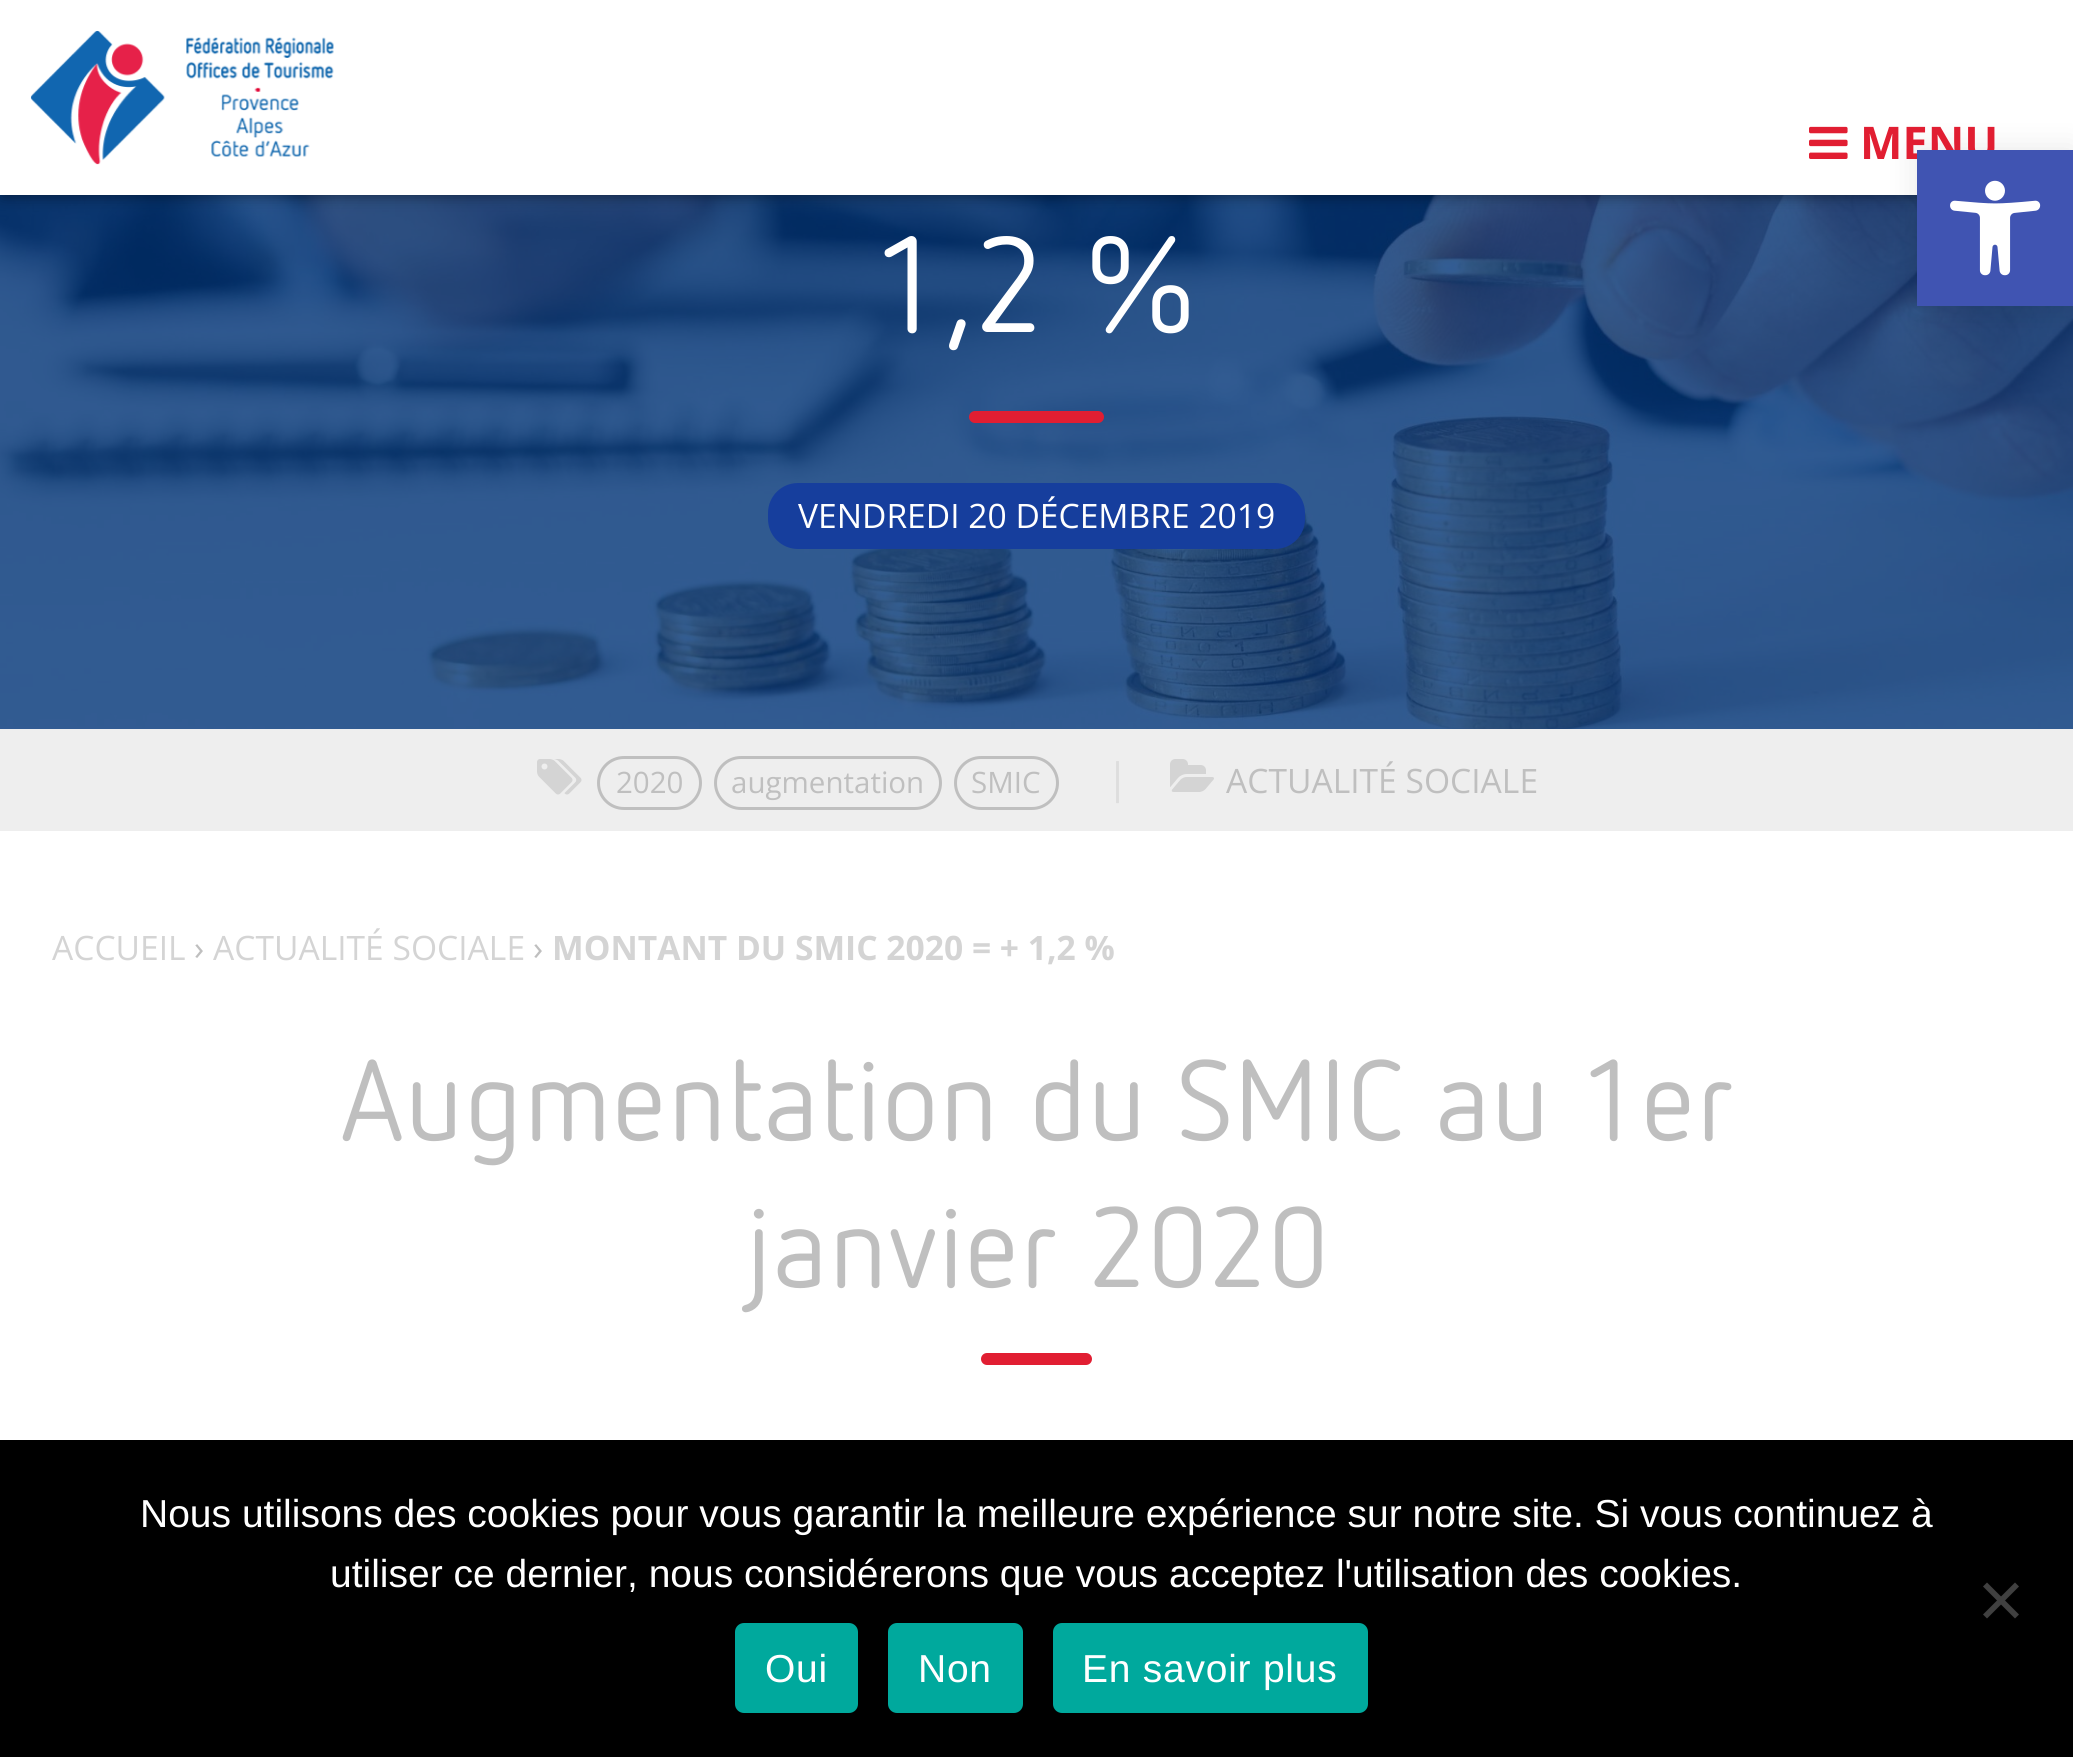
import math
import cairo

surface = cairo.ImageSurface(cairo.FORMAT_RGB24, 2073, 1757)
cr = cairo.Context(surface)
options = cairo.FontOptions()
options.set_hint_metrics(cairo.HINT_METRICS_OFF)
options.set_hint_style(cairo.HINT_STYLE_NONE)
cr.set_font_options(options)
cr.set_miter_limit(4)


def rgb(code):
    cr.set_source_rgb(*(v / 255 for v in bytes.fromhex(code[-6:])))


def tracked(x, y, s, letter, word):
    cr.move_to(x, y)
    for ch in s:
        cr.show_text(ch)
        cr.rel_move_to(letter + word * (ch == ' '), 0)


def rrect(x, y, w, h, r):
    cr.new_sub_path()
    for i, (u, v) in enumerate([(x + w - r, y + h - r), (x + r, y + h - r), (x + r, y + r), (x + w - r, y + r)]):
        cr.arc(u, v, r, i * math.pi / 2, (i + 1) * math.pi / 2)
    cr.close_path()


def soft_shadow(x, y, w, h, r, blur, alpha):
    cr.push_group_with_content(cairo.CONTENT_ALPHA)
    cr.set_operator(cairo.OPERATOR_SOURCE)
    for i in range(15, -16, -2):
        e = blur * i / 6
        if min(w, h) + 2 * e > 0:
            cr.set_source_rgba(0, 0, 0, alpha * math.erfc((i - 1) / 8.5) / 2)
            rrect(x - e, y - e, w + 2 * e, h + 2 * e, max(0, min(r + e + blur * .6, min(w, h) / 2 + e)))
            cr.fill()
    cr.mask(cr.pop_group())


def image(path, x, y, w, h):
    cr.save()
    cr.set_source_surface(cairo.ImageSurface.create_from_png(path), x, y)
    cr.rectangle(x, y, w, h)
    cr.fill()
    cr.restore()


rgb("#ffffff")
cr.paint()
image("img/4.png", 0, 195, 2073, 534)
rgb("#000000")
soft_shadow(3, 0, 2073, 195, 0, 7.5, 0.5)
rgb("#ffffff")
cr.rectangle(0, 0, 2073, 195)
cr.fill()
rgb("#000000")
soft_shadow(1917, 150, 156, 156, 0, 15, 0.1)
image("img/2.png", 30, 30, 304, 135)
image("img/3.png", 1809, 126, 39, 33)
rgb("#e11e32")
rrect(969, 411, 135, 12, 6)
cr.fill()
rgb("#163e9d")
rrect(768, 483, 537, 66, 30)
cr.fill()
rgb("#eeeeee")
cr.rectangle(0, 729, 2073, 102)
cr.fill()
image("img/5.png", 537, 759, 45, 36)
rrect(598.5, 757.5, 102, 51, 25.5)
rgb("#bfbfbf")
cr.set_line_width(3)
cr.stroke()
rrect(715.5, 757.5, 225, 51, 25.5)
cr.stroke()
rrect(955.5, 757.5, 102, 51, 25.5)
cr.stroke()
image("img/6.png", 1170, 759, 44, 33)
rgb("#e11e32")
rrect(981, 1353, 111, 12, 6)
cr.fill()
rgb("#000000")
cr.rectangle(0, 1440, 2073, 317)
cr.fill()
rgb("#404040")
cr.new_path()
cr.move_to(2015, 1582.5)
cr.line_to(2019, 1586.5)
cr.line_to(1987, 1618.5)
cr.line_to(1983, 1614.5)
cr.close_path()
cr.fill()
cr.new_path()
cr.move_to(1983, 1586.5)
cr.line_to(1987, 1582.5)
cr.line_to(2019, 1614.5)
cr.line_to(2015, 1618.5)
cr.close_path()
cr.fill()
rgb("#00a99d")
rrect(735, 1623, 123, 90, 9)
cr.fill()
rrect(888, 1623, 135, 90, 9)
cr.fill()
rrect(1053, 1623, 315, 90, 9)
cr.fill()
cr.select_font_face("Open Sans", cairo.FONT_SLANT_NORMAL, cairo.FONT_WEIGHT_BOLD)
cr.set_font_size(45)
rgb("#e11e32")
cr.move_to(1860, 159)
cr.show_text("MENU")
rgb("#4054b2")
cr.rectangle(1917, 150, 156, 156)
cr.fill()
image("img/1.png", 1950, 180, 91, 96)
cr.select_font_face("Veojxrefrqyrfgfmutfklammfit")
cr.set_font_size(135)
rgb("#ffffff")
cr.move_to(872, 332)
cr.show_text("1,2 %")
cr.select_font_face("Open Sans")
cr.set_font_size(33.6)
cr.move_to(798, 528)
cr.show_text("VENDREDI 20 DÉCEMBRE 2019")
cr.set_font_size(29.5)
rgb("#bfbfbf")
for x, y, s in [
    (616, 793, "2020"),
    (731, 793, "augmentation"),
    (971, 793, "SMIC"),
]:
    cr.move_to(x, y)
    cr.show_text(s)
cr.set_font_size(42)
rgb("#dddddd")
cr.move_to(1106, 793)
cr.show_text("|")
cr.set_font_size(33.6)
rgb("#bfbfbf")
cr.move_to(1226, 793)
cr.show_text("ACTUALITÉ SOCIALE")
rgb("#d4d4d4")
cr.move_to(52, 960)
cr.show_text("ACCUEIL")
rgb("#bfbfbf")
cr.move_to(194, 960)
cr.show_text("›")
rgb("#d4d4d4")
cr.move_to(213, 960)
cr.show_text("ACTUALITÉ SOCIALE")
rgb("#bfbfbf")
cr.move_to(533, 960)
cr.show_text("›")
cr.select_font_face("Open Sans", cairo.FONT_SLANT_NORMAL, cairo.FONT_WEIGHT_BOLD)
rgb("#d4d4d4")
cr.move_to(552, 960)
cr.show_text("MONTANT DU SMIC 2020 = + 1,2 %")
cr.select_font_face("Veojxrefrqyrfgfmutfklammfit")
cr.set_font_size(113.4)
rgb("#bfbfbf")
cr.move_to(340, 1140)
cr.show_text("Augmentation du SMIC au 1er")
cr.move_to(744, 1287)
cr.show_text("janvier 2020")
cr.select_font_face("Liberation Sans")
cr.set_font_size(39)
rgb("#ffffff")
cr.move_to(140, 1527)
cr.show_text("Nous utilisons des cookies pour vous garantir la meilleure expérience sur notre site. Si vous continuez à")
cr.move_to(330, 1587)
cr.show_text("utiliser ce dernier, nous considérerons que vous acceptez l'utilisation des cookies.")
for x, y, s in [
    (765, 1682, "Oui"),
    (918, 1682, "Non"),
    (1082, 1682, "En savoir plus"),
]:
    tracked(x, y, s, 0.75, 0)
surface.write_to_png("page.png")
